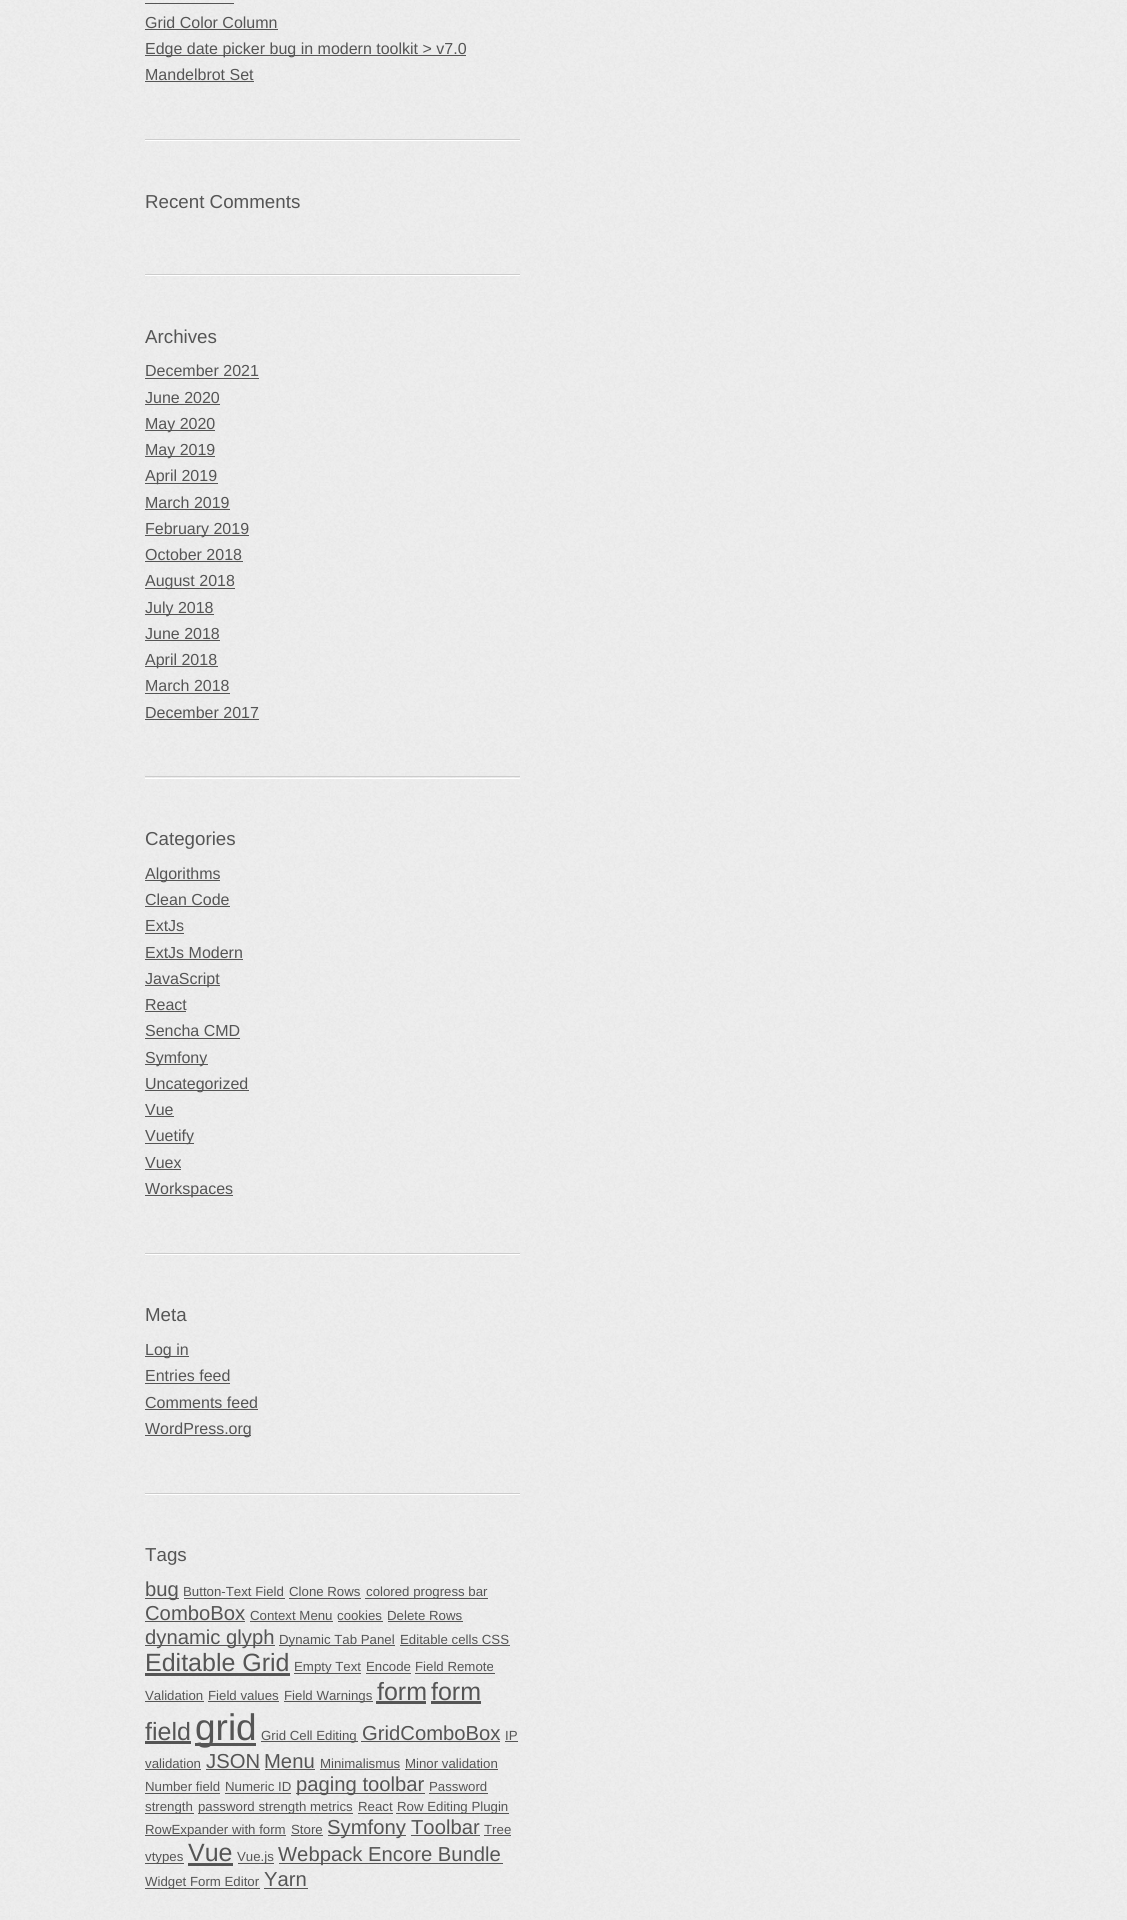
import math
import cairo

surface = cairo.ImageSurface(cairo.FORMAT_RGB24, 1127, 1920)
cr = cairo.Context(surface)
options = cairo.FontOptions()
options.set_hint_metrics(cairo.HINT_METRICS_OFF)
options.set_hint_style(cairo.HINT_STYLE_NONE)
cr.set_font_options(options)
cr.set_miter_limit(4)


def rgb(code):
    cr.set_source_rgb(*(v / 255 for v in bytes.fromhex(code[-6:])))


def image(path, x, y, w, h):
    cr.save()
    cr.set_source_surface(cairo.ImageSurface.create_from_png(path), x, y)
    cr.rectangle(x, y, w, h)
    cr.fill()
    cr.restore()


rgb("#f0f0f0")
cr.paint()
image("img/1.png", 0, 0, 1127, 1920)
for x, y, w, h, color in [
    (145, 140, 375, 1, "#ffffff"),
    (145, 139, 375, 1, "#cccccc"),
    (145, 3, 89, 1, "#555555"),
    (145, 29, 133, 1, "#555555"),
    (145, 55, 321, 1, "#555555"),
    (145, 81, 109, 1, "#555555"),
    (145, 275, 375, 1, "#ffffff"),
    (145, 274, 375, 1, "#cccccc"),
    (145, 778, 375, 1, "#ffffff"),
    (145, 776, 375, 1, "#cccccc"),
    (145, 378, 114, 1, "#555555"),
    (145, 404, 75, 1, "#555555"),
    (145, 430, 70, 1, "#555555"),
    (145, 456, 70, 1, "#555555"),
    (145, 483, 73, 1, "#555555"),
    (145, 509, 85, 1, "#555555"),
    (145, 535, 104, 1, "#555555"),
    (145, 561, 98, 1, "#555555"),
    (145, 588, 90, 1, "#555555"),
    (145, 614, 69, 1, "#555555"),
    (145, 640, 75, 1, "#555555"),
    (145, 666, 73, 1, "#555555"),
    (145, 693, 85, 1, "#555555"),
    (145, 719, 114, 1, "#555555"),
    (145, 1254, 375, 1, "#ffffff"),
    (145, 1253, 375, 1, "#cccccc"),
    (145, 880, 75, 1, "#555555"),
    (145, 906, 85, 1, "#555555"),
    (145, 933, 39, 1, "#555555"),
    (145, 959, 98, 1, "#555555"),
    (145, 985, 75, 1, "#555555"),
    (145, 1011, 41, 1, "#555555"),
    (145, 1038, 95, 1, "#555555"),
    (145, 1064, 63, 1, "#555555"),
    (145, 1090, 104, 1, "#555555"),
    (145, 1116, 29, 1, "#555555"),
    (145, 1143, 49, 1, "#555555"),
    (145, 1169, 36, 1, "#555555"),
    (145, 1195, 88, 1, "#555555"),
    (145, 1494, 375, 1, "#ffffff"),
    (145, 1493, 375, 1, "#cccccc"),
    (145, 1356, 44, 1, "#555555"),
    (145, 1383, 85, 1, "#555555"),
    (145, 1409, 113, 1, "#555555"),
    (145, 1435, 106, 1, "#555555"),
    (145, 1598, 34, 1, "#555555"),
    (184, 1598, 101, 1, "#555555"),
    (289, 1598, 72, 1, "#555555"),
    (365, 1598, 123, 1, "#555555"),
    (145, 1621, 100, 1, "#555555"),
    (250, 1621, 83, 1, "#555555"),
    (338, 1621, 45, 1, "#555555"),
    (388, 1621, 75, 1, "#555555"),
    (145, 1645, 130, 1, "#555555"),
    (279, 1645, 116, 1, "#555555"),
    (400, 1645, 110, 1, "#555555"),
    (145, 1673, 145, 3, "#555555"),
    (294, 1673, 67, 1, "#555555"),
    (366, 1673, 45, 1, "#555555"),
    (415, 1673, 80, 1, "#555555"),
    (145, 1701, 59, 1, "#555555"),
    (208, 1701, 71, 1, "#555555"),
    (284, 1701, 89, 1, "#555555"),
    (376, 1701, 50, 3, "#555555"),
    (431, 1701, 50, 3, "#555555"),
    (145, 1741, 46, 3, "#555555"),
    (195, 1743, 61, 3, "#555555"),
    (261, 1741, 97, 1, "#555555"),
    (361, 1741, 139, 1, "#555555"),
    (505, 1741, 13, 1, "#555555"),
    (145, 1769, 56, 1, "#555555"),
    (206, 1769, 54, 1, "#555555"),
    (265, 1769, 50, 1, "#555555"),
    (320, 1769, 80, 1, "#555555"),
    (405, 1769, 93, 1, "#555555"),
    (145, 1793, 75, 1, "#555555"),
    (225, 1793, 66, 1, "#555555"),
    (296, 1793, 129, 1, "#555555"),
    (429, 1793, 59, 1, "#555555"),
    (145, 1813, 49, 1, "#555555"),
    (198, 1813, 155, 1, "#555555"),
    (358, 1813, 35, 1, "#555555"),
    (396, 1813, 113, 1, "#555555"),
    (145, 1835, 141, 1, "#555555"),
    (291, 1835, 32, 1, "#555555"),
    (328, 1835, 78, 1, "#555555"),
    (411, 1835, 69, 1, "#555555"),
    (484, 1835, 27, 1, "#555555"),
    (145, 1863, 39, 1, "#555555"),
    (188, 1863, 45, 3, "#555555"),
    (238, 1863, 36, 1, "#555555"),
    (279, 1863, 224, 1, "#555555"),
    (145, 1888, 115, 1, "#555555"),
    (264, 1888, 44, 1, "#555555"),
]:
    rgb(color)
    cr.rectangle(x, y, w, h)
    cr.fill()
cr.select_font_face("Liberation Sans")
cr.set_font_size(16)
for x, y, s in [
    (145, 28, "Grid Color Column"),
    (145, 54, "Edge date picker bug in modern toolkit > v7.0"),
    (145, 80, "Mandelbrot Set"),
]:
    cr.move_to(x, y)
    cr.show_text(s)
cr.set_font_size(18.75)
cr.move_to(145, 208)
cr.show_text("Recent Comments")
cr.move_to(145, 343)
cr.show_text("Archives")
cr.set_font_size(16)
for x, y, s in [
    (145, 376, "December 2021"),
    (145, 403, "June 2020"),
    (145, 429, "May 2020"),
    (145, 455, "May 2019"),
    (145, 481, "April 2019"),
    (145, 508, "March 2019"),
    (145, 534, "February 2019"),
    (145, 560, "October 2018"),
    (145, 586, "August 2018"),
    (145, 613, "July 2018"),
    (145, 639, "June 2018"),
    (145, 665, "April 2018"),
    (145, 691, "March 2018"),
    (145, 718, "December 2017"),
]:
    cr.move_to(x, y)
    cr.show_text(s)
cr.set_font_size(18.75)
cr.move_to(145, 845)
cr.show_text("Categories")
cr.set_font_size(16)
for x, y, s in [
    (145, 879, "Algorithms"),
    (145, 905, "Clean Code"),
    (145, 931, "ExtJs"),
    (145, 958, "ExtJs Modern"),
    (145, 984, "JavaScript"),
    (145, 1010, "React"),
    (145, 1036, "Sencha CMD"),
    (145, 1063, "Symfony"),
    (145, 1089, "Uncategorized"),
    (145, 1115, "Vue"),
    (145, 1141, "Vuetify"),
    (145, 1168, "Vuex"),
    (145, 1194, "Workspaces"),
]:
    cr.move_to(x, y)
    cr.show_text(s)
cr.set_font_size(18.75)
cr.move_to(145, 1321)
cr.show_text("Meta")
cr.set_font_size(16)
for x, y, s in [
    (145, 1355, "Log in"),
    (145, 1381, "Entries feed"),
    (145, 1408, "Comments feed"),
    (145, 1434, "WordPress.org"),
]:
    cr.move_to(x, y)
    cr.show_text(s)
cr.set_font_size(18.75)
cr.move_to(145, 1561)
cr.show_text("Tags")
cr.set_font_size(20.25)
cr.move_to(145, 1596)
cr.show_text("bug")
cr.set_font_size(13.25)
for x, y, s in [
    (183, 1596, "Button-Text Field"),
    (289, 1596, "Clone Rows"),
    (366, 1596, "colored progress bar"),
]:
    cr.move_to(x, y)
    cr.show_text(s)
cr.set_font_size(20.25)
cr.move_to(145, 1620)
cr.show_text("ComboBox")
cr.set_font_size(13.25)
for x, y, s in [
    (250, 1620, "Context Menu"),
    (337, 1620, "cookies"),
    (387, 1620, "Delete Rows"),
]:
    cr.move_to(x, y)
    cr.show_text(s)
cr.set_font_size(20.25)
cr.move_to(145, 1644)
cr.show_text("dynamic glyph")
cr.set_font_size(13.25)
cr.move_to(279, 1644)
cr.show_text("Dynamic Tab Panel")
cr.move_to(400, 1644)
cr.show_text("Editable cells CSS")
cr.set_font_size(25)
cr.move_to(145, 1671)
cr.show_text("Editable Grid")
cr.set_font_size(13.25)
for x, y, s in [
    (294, 1671, "Empty Text"),
    (366, 1671, "Encode"),
    (415, 1671, "Field Remote"),
    (145, 1700, "Validation"),
    (208, 1700, "Field values"),
    (284, 1700, "Field Warnings"),
]:
    cr.move_to(x, y)
    cr.show_text(s)
cr.set_font_size(25)
for x, y, s in [
    (377, 1700, "form"),
    (431, 1700, "form"),
    (145, 1740, "field"),
]:
    cr.move_to(x, y)
    cr.show_text(s)
cr.set_font_size(37)
cr.move_to(195, 1740)
cr.show_text("grid")
cr.set_font_size(13.25)
cr.move_to(261, 1740)
cr.show_text("Grid Cell Editing")
cr.set_font_size(20.25)
cr.move_to(362, 1740)
cr.show_text("GridComboBox")
cr.set_font_size(13.25)
cr.move_to(505, 1740)
cr.show_text("IP")
cr.move_to(145, 1768)
cr.show_text("validation")
cr.set_font_size(20.25)
cr.move_to(206, 1768)
cr.show_text("JSON")
cr.move_to(264, 1768)
cr.show_text("Menu")
cr.set_font_size(13.25)
for x, y, s in [
    (320, 1768, "Minimalismus"),
    (405, 1768, "Minor validation"),
    (145, 1791, "Number field"),
    (225, 1791, "Numeric ID"),
]:
    cr.move_to(x, y)
    cr.show_text(s)
cr.set_font_size(20.25)
cr.move_to(296, 1791)
cr.show_text("paging toolbar")
cr.set_font_size(13.25)
for x, y, s in [
    (429, 1791, "Password"),
    (145, 1811, "strength"),
    (198, 1811, "password strength metrics"),
    (358, 1811, "React"),
    (397, 1811, "Row Editing Plugin"),
    (145, 1834, "RowExpander with form"),
    (291, 1834, "Store"),
]:
    cr.move_to(x, y)
    cr.show_text(s)
cr.set_font_size(20.25)
cr.move_to(327, 1834)
cr.show_text("Symfony")
cr.move_to(411, 1834)
cr.show_text("Toolbar")
cr.set_font_size(13.25)
cr.move_to(484, 1834)
cr.show_text("Tree")
cr.move_to(145, 1861)
cr.show_text("vtypes")
cr.set_font_size(25)
cr.move_to(188, 1861)
cr.show_text("Vue")
cr.set_font_size(13.25)
cr.move_to(237, 1861)
cr.show_text("Vue.js")
cr.set_font_size(20.25)
cr.move_to(278, 1861)
cr.show_text("Webpack Encore Bundle")
cr.set_font_size(13.25)
cr.move_to(145, 1886)
cr.show_text("Widget Form Editor")
cr.set_font_size(20.25)
cr.move_to(264, 1886)
cr.show_text("Yarn")
surface.write_to_png("page.png")
